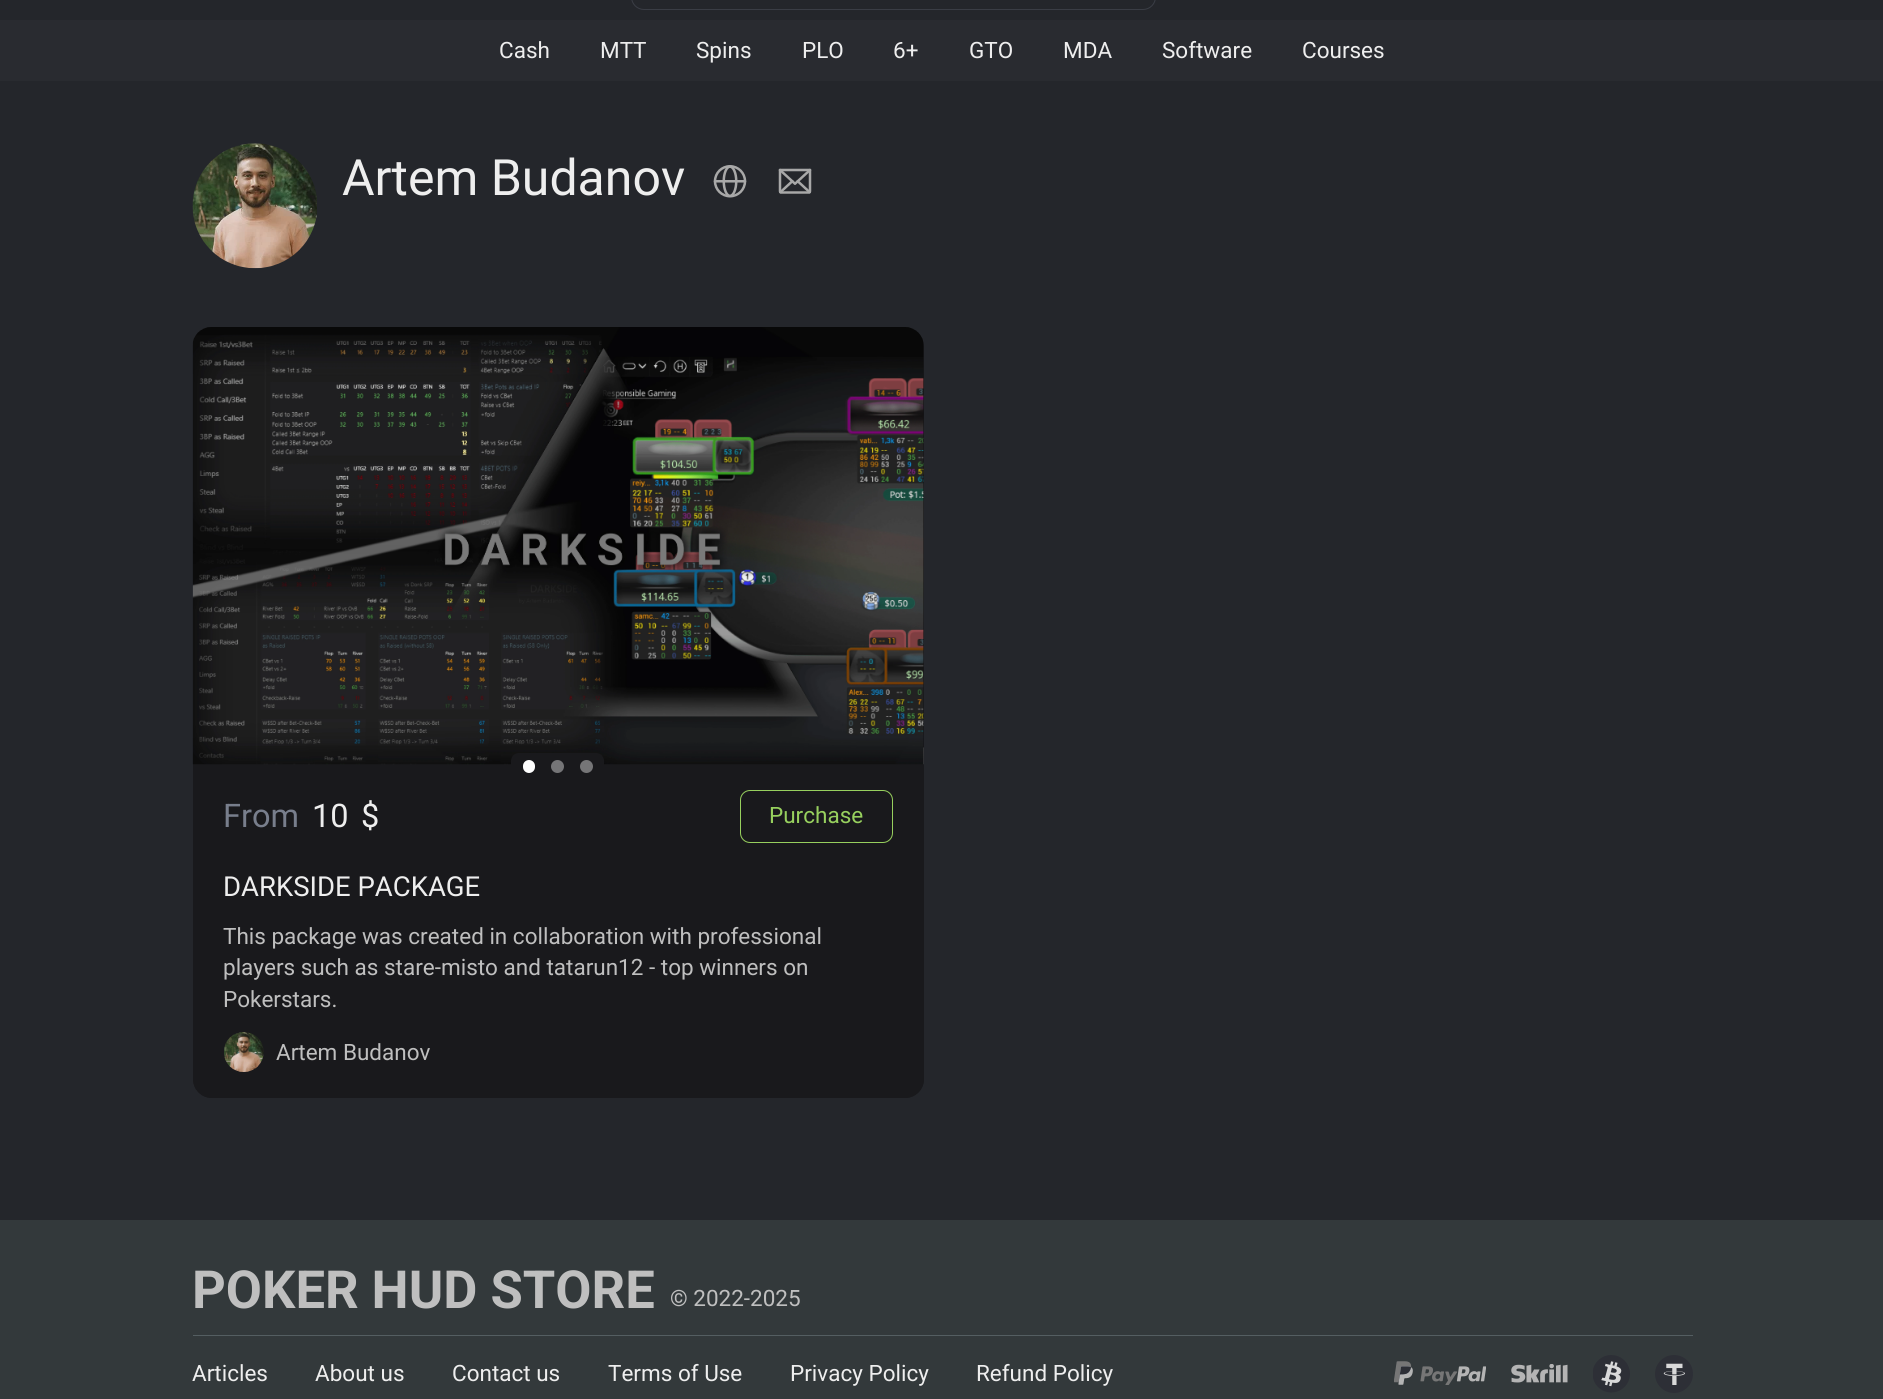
import math
import cairo

surface = cairo.ImageSurface(cairo.FORMAT_RGB24, 1883, 1399)
cr = cairo.Context(surface)
options = cairo.FontOptions()
options.set_hint_metrics(cairo.HINT_METRICS_OFF)
options.set_hint_style(cairo.HINT_STYLE_NONE)
cr.set_font_options(options)
cr.set_miter_limit(4)


def rgb(code):
    cr.set_source_rgb(*(v / 255 for v in bytes.fromhex(code[-6:])))


def rrect(x, y, w, h, r):
    cr.new_sub_path()
    for i, (u, v) in enumerate([(x + w - r, y + h - r), (x + r, y + h - r), (x + r, y + r), (x + w - r, y + r)]):
        cr.arc(u, v, r, i * math.pi / 2, (i + 1) * math.pi / 2)
    cr.close_path()


def image(path, x, y, w, h):
    cr.save()
    cr.set_source_surface(cairo.ImageSurface.create_from_png(path), x, y)
    cr.rectangle(x, y, w, h)
    cr.fill()
    cr.restore()


rgb("#24262b")
cr.paint()
rrect(631.5, -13.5, 524, 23, 12.5)
rgb("#3a3d45")
cr.set_line_width(1)
cr.stroke()
rgb("#292b30")
cr.rectangle(0, 20, 1883, 61)
cr.fill()
image("img/1.png", 192, 143, 125, 126)
image("img/2.png", 713, 165, 34, 33)
image("img/3.png", 778, 168, 34, 26)
rgb("#19191c")
rrect(193, 328, 731, 770, 19)
cr.fill()
image("img/4.png", 192, 327, 732, 438)
image("img/5.png", 923, 378, 1, 387)
cr.new_path()
cr.move_to(193, 765)
cr.line_to(924, 765)
cr.line_to(924, 1079)
cr.curve_to(924, 1089.5, 915.5, 1098, 905, 1098)
cr.line_to(212, 1098)
cr.curve_to(201.5, 1098, 193, 1089.5, 193, 1079)
cr.close_path()
cr.fill()
rrect(511, 753, 93, 26, 8)
cr.fill()
rgb("#ffffff")
rrect(523, 760, 12, 13, 6)
cr.fill()
rgb("#757577")
cr.arc(557.5, 766.5, 6.5, 0, 2 * math.pi)
cr.fill()
cr.arc(586.5, 766.5, 6.5, 0, 2 * math.pi)
cr.fill()
rrect(740.5, 790.5, 152, 52, 9.5)
rgb("#97d05e")
cr.stroke()
image("img/6.png", 224, 1032, 40, 40)
rgb("#33393b")
cr.rectangle(0, 1220, 1883, 179)
cr.fill()
rgb("#545e61")
cr.rectangle(193, 1335, 1500, 1)
cr.fill()
image("img/7.png", 1394, 1361, 92, 24)
image("img/8.png", 1511, 1364, 57, 19)
image("img/9.png", 1593, 1355, 37, 38)
image("img/10.png", 1655, 1355, 38, 38)
cr.select_font_face("Roboto")
cr.set_font_size(22.5)
rgb("#eeeeee")
for x, y, s in [
    (499, 58, "Cash"),
    (600, 58, "MTT"),
    (696, 58, "Spins"),
    (802, 58, "PLO"),
    (893, 58, "6+"),
    (969, 58, "GTO"),
    (1063, 58, "MDA"),
    (1162, 58, "Software"),
    (1302, 58, "Courses"),
]:
    cr.move_to(x, y)
    cr.show_text(s)
cr.set_font_size(50)
cr.move_to(342, 195)
cr.show_text("Artem Budanov")
cr.set_font_size(32.5)
rgb("#787e8c")
cr.move_to(223, 827)
cr.show_text("From")
rgb("#eeeeee")
cr.move_to(312, 827)
cr.show_text("10")
cr.move_to(361, 827)
cr.show_text("$")
cr.set_font_size(22.5)
rgb("#97d05e")
cr.move_to(769, 823)
cr.show_text("Purchase")
cr.set_font_size(27.5)
rgb("#eeeeee")
cr.move_to(223, 896)
cr.show_text("DARKSIDE PACKAGE")
cr.set_font_size(22.5)
rgb("#bfbfbf")
for x, y, s in [
    (223, 944, "This package was created in collaboration with professional"),
    (223, 975, "players such as stare-misto and tatarun12 - top winners on"),
    (223, 1007, "Pokerstars."),
    (276, 1060, "Artem Budanov"),
]:
    cr.move_to(x, y)
    cr.show_text(s)
cr.select_font_face("Roboto", cairo.FONT_SLANT_NORMAL, cairo.FONT_WEIGHT_BOLD)
cr.set_font_size(52.5)
cr.move_to(192, 1308)
cr.show_text("POKER HUD STORE")
cr.select_font_face("Roboto")
cr.set_font_size(22.5)
cr.move_to(670, 1306)
cr.show_text("© 2022-2025")
rgb("#eeeeee")
for x, y, s in [
    (192, 1381, "Articles"),
    (315, 1381, "About us"),
    (452, 1381, "Contact us"),
    (608, 1381, "Terms of Use"),
    (790, 1381, "Privacy Policy"),
    (976, 1381, "Refund Policy"),
]:
    cr.move_to(x, y)
    cr.show_text(s)
surface.write_to_png("page.png")
